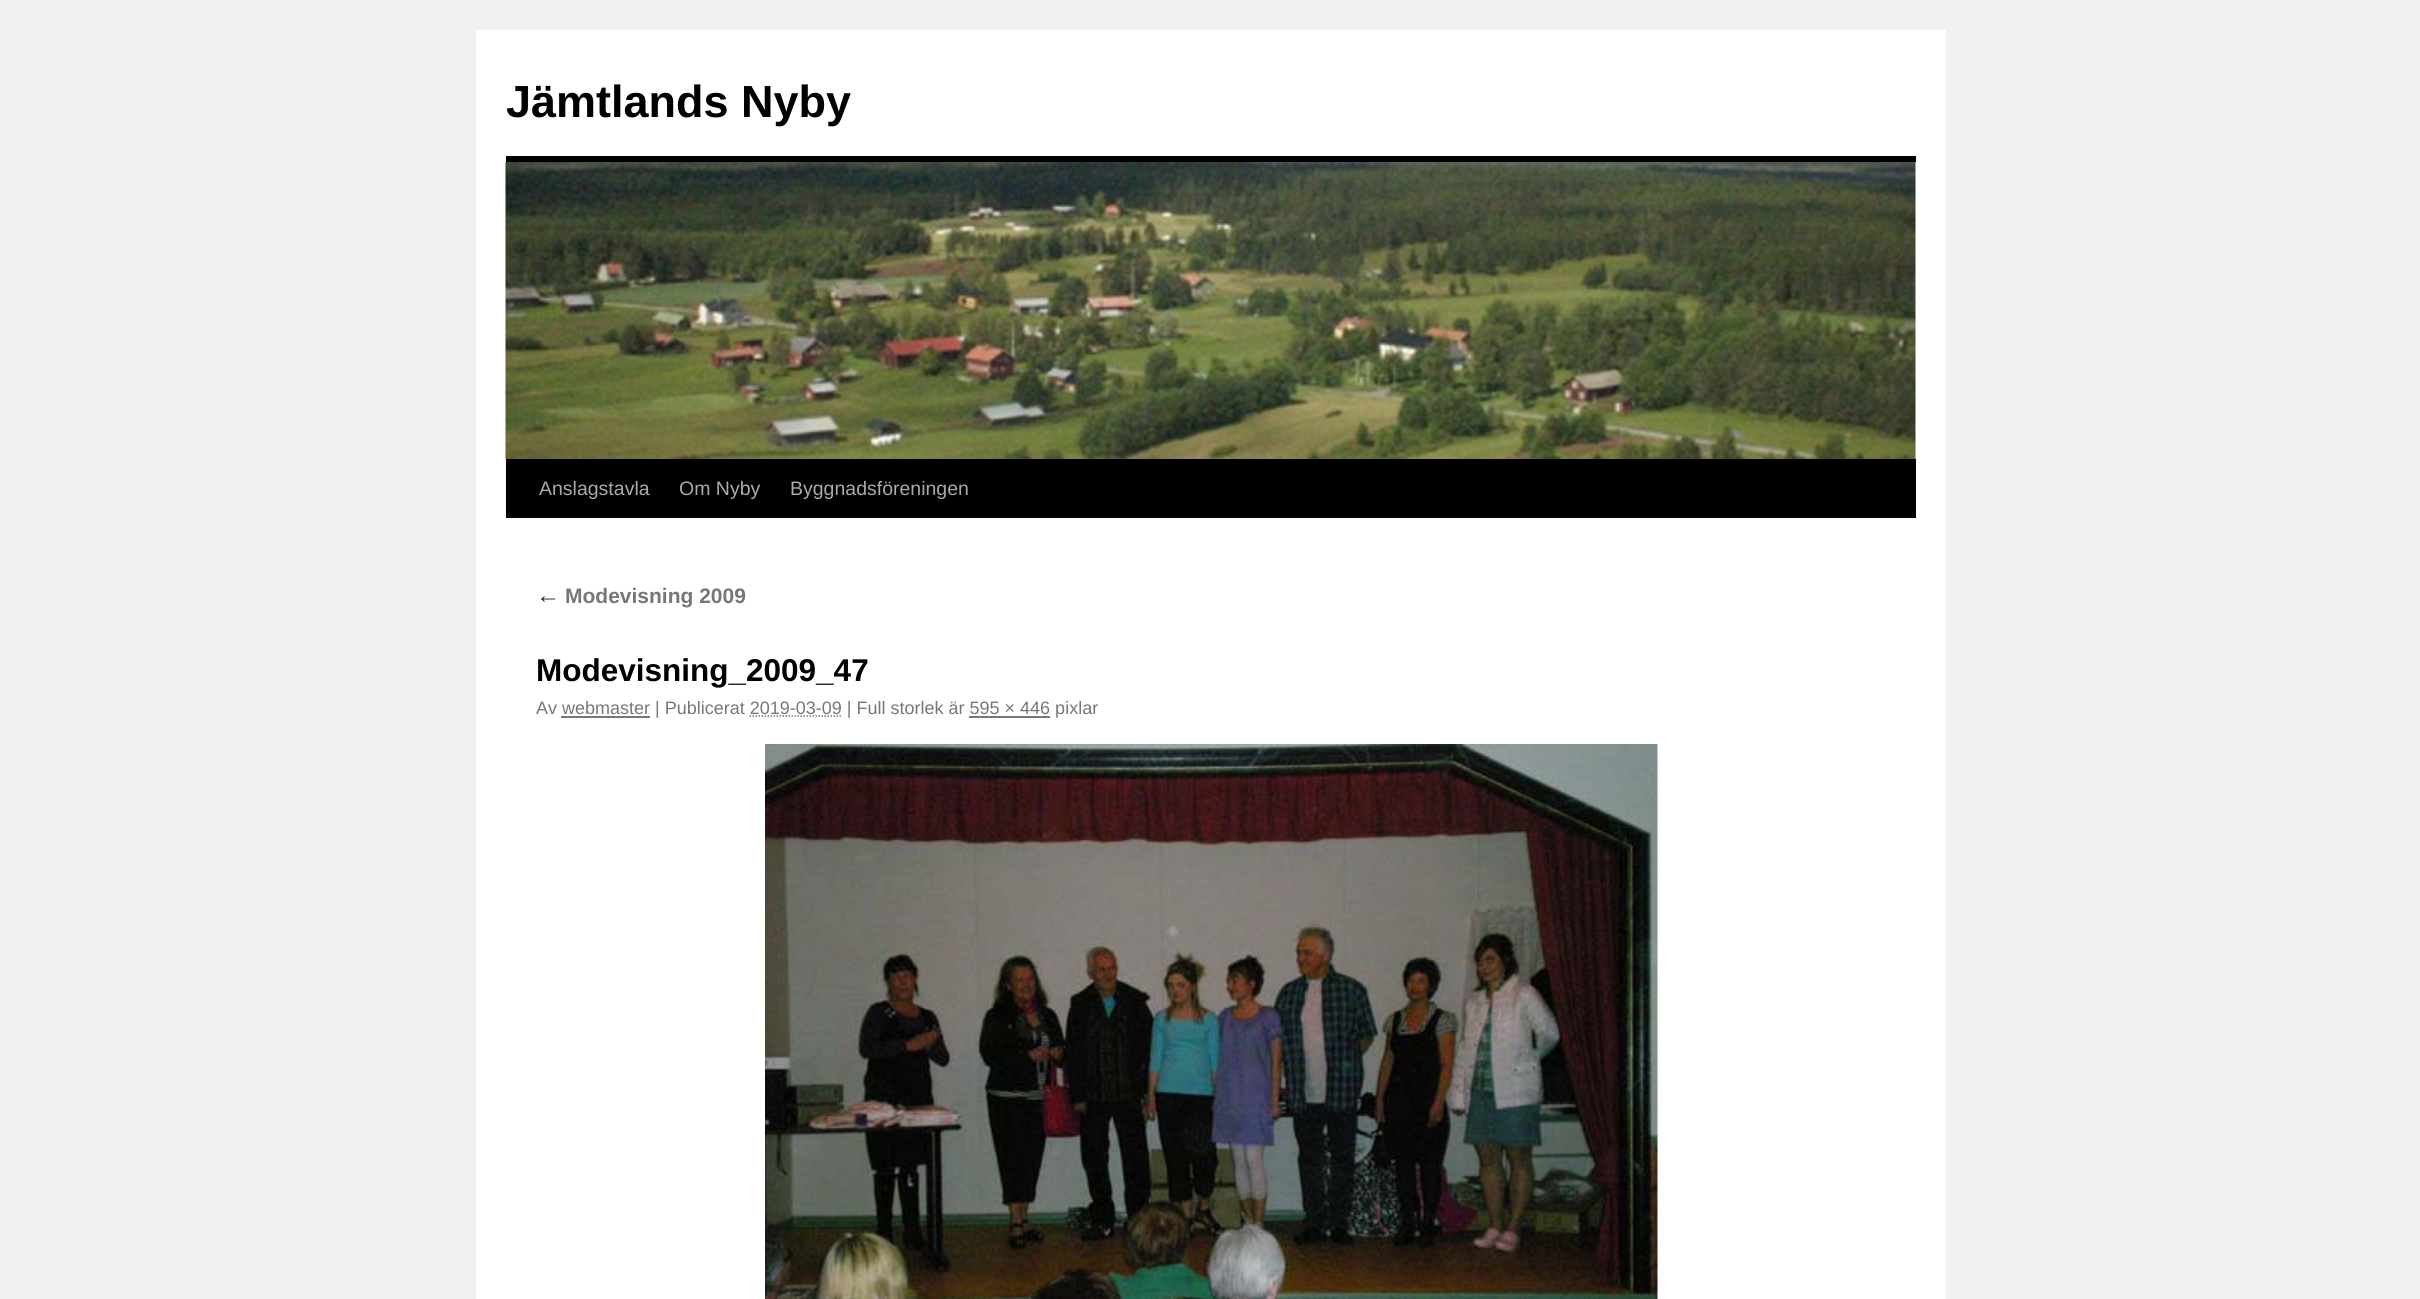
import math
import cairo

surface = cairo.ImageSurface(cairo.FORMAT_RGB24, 2420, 1299)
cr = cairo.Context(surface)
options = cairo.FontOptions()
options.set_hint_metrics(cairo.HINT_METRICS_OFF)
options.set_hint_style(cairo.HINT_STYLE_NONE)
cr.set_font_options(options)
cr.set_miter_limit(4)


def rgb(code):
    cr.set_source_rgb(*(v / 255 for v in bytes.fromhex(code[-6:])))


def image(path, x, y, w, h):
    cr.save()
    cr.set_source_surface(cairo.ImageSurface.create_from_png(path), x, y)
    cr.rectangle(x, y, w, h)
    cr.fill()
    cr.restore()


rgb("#f1f1f1")
cr.paint()
for x, y, w, h, color in [
    (476, 30, 1470, 1269, "#ffffff"),
    (506, 156, 1410, 6, "#000000"),
    (506, 459, 1410, 59, "#000000"),
]:
    rgb(color)
    cr.rectangle(x, y, w, h)
    cr.fill()
image("img/1.png", 505, 162, 1411, 297)
rgb("#777777")
cr.rectangle(561, 716, 89, 2)
cr.fill()
cr.new_path()
cr.move_to(749.5, 716)
cr.line_to(841.5, 716)
cr.set_line_width(1.5)
cr.set_dash([1.5, 1.5])
cr.stroke()
cr.rectangle(969, 716, 81, 2)
cr.fill()
image("img/2.png", 765, 744, 893, 555)
cr.select_font_face("Liberation Sans", cairo.FONT_SLANT_NORMAL, cairo.FONT_WEIGHT_BOLD)
cr.set_font_size(45)
rgb("#000000")
cr.move_to(506, 117)
cr.show_text("Jämtlands Nyby")
cr.select_font_face("Liberation Sans")
cr.set_font_size(19.5)
rgb("#aaaaaa")
for x, y, s in [
    (539, 495, "Anslagstavla"),
    (679, 495, "Om Nyby"),
    (790, 495, "Byggnadsföreningen"),
]:
    cr.move_to(x, y)
    cr.show_text(s)
cr.select_font_face("Liberation Sans", cairo.FONT_SLANT_ITALIC)
cr.set_font_size(24)
rgb("#333333")
cr.move_to(536, 603)
cr.show_text("←")
cr.select_font_face("Liberation Sans", cairo.FONT_SLANT_NORMAL, cairo.FONT_WEIGHT_BOLD)
cr.set_font_size(21)
rgb("#777777")
cr.move_to(565, 603)
cr.show_text("Modevisning 2009")
cr.set_font_size(31.5)
rgb("#000000")
cr.move_to(536, 681)
cr.show_text("Modevisning_2009_47")
cr.select_font_face("Liberation Sans")
cr.set_font_size(18)
rgb("#777777")
cr.move_to(536, 714)
cr.show_text("Av webmaster | Publicerat 2019-03-09 | Full storlek är 595 × 446 pixlar")
surface.write_to_png("page.png")
